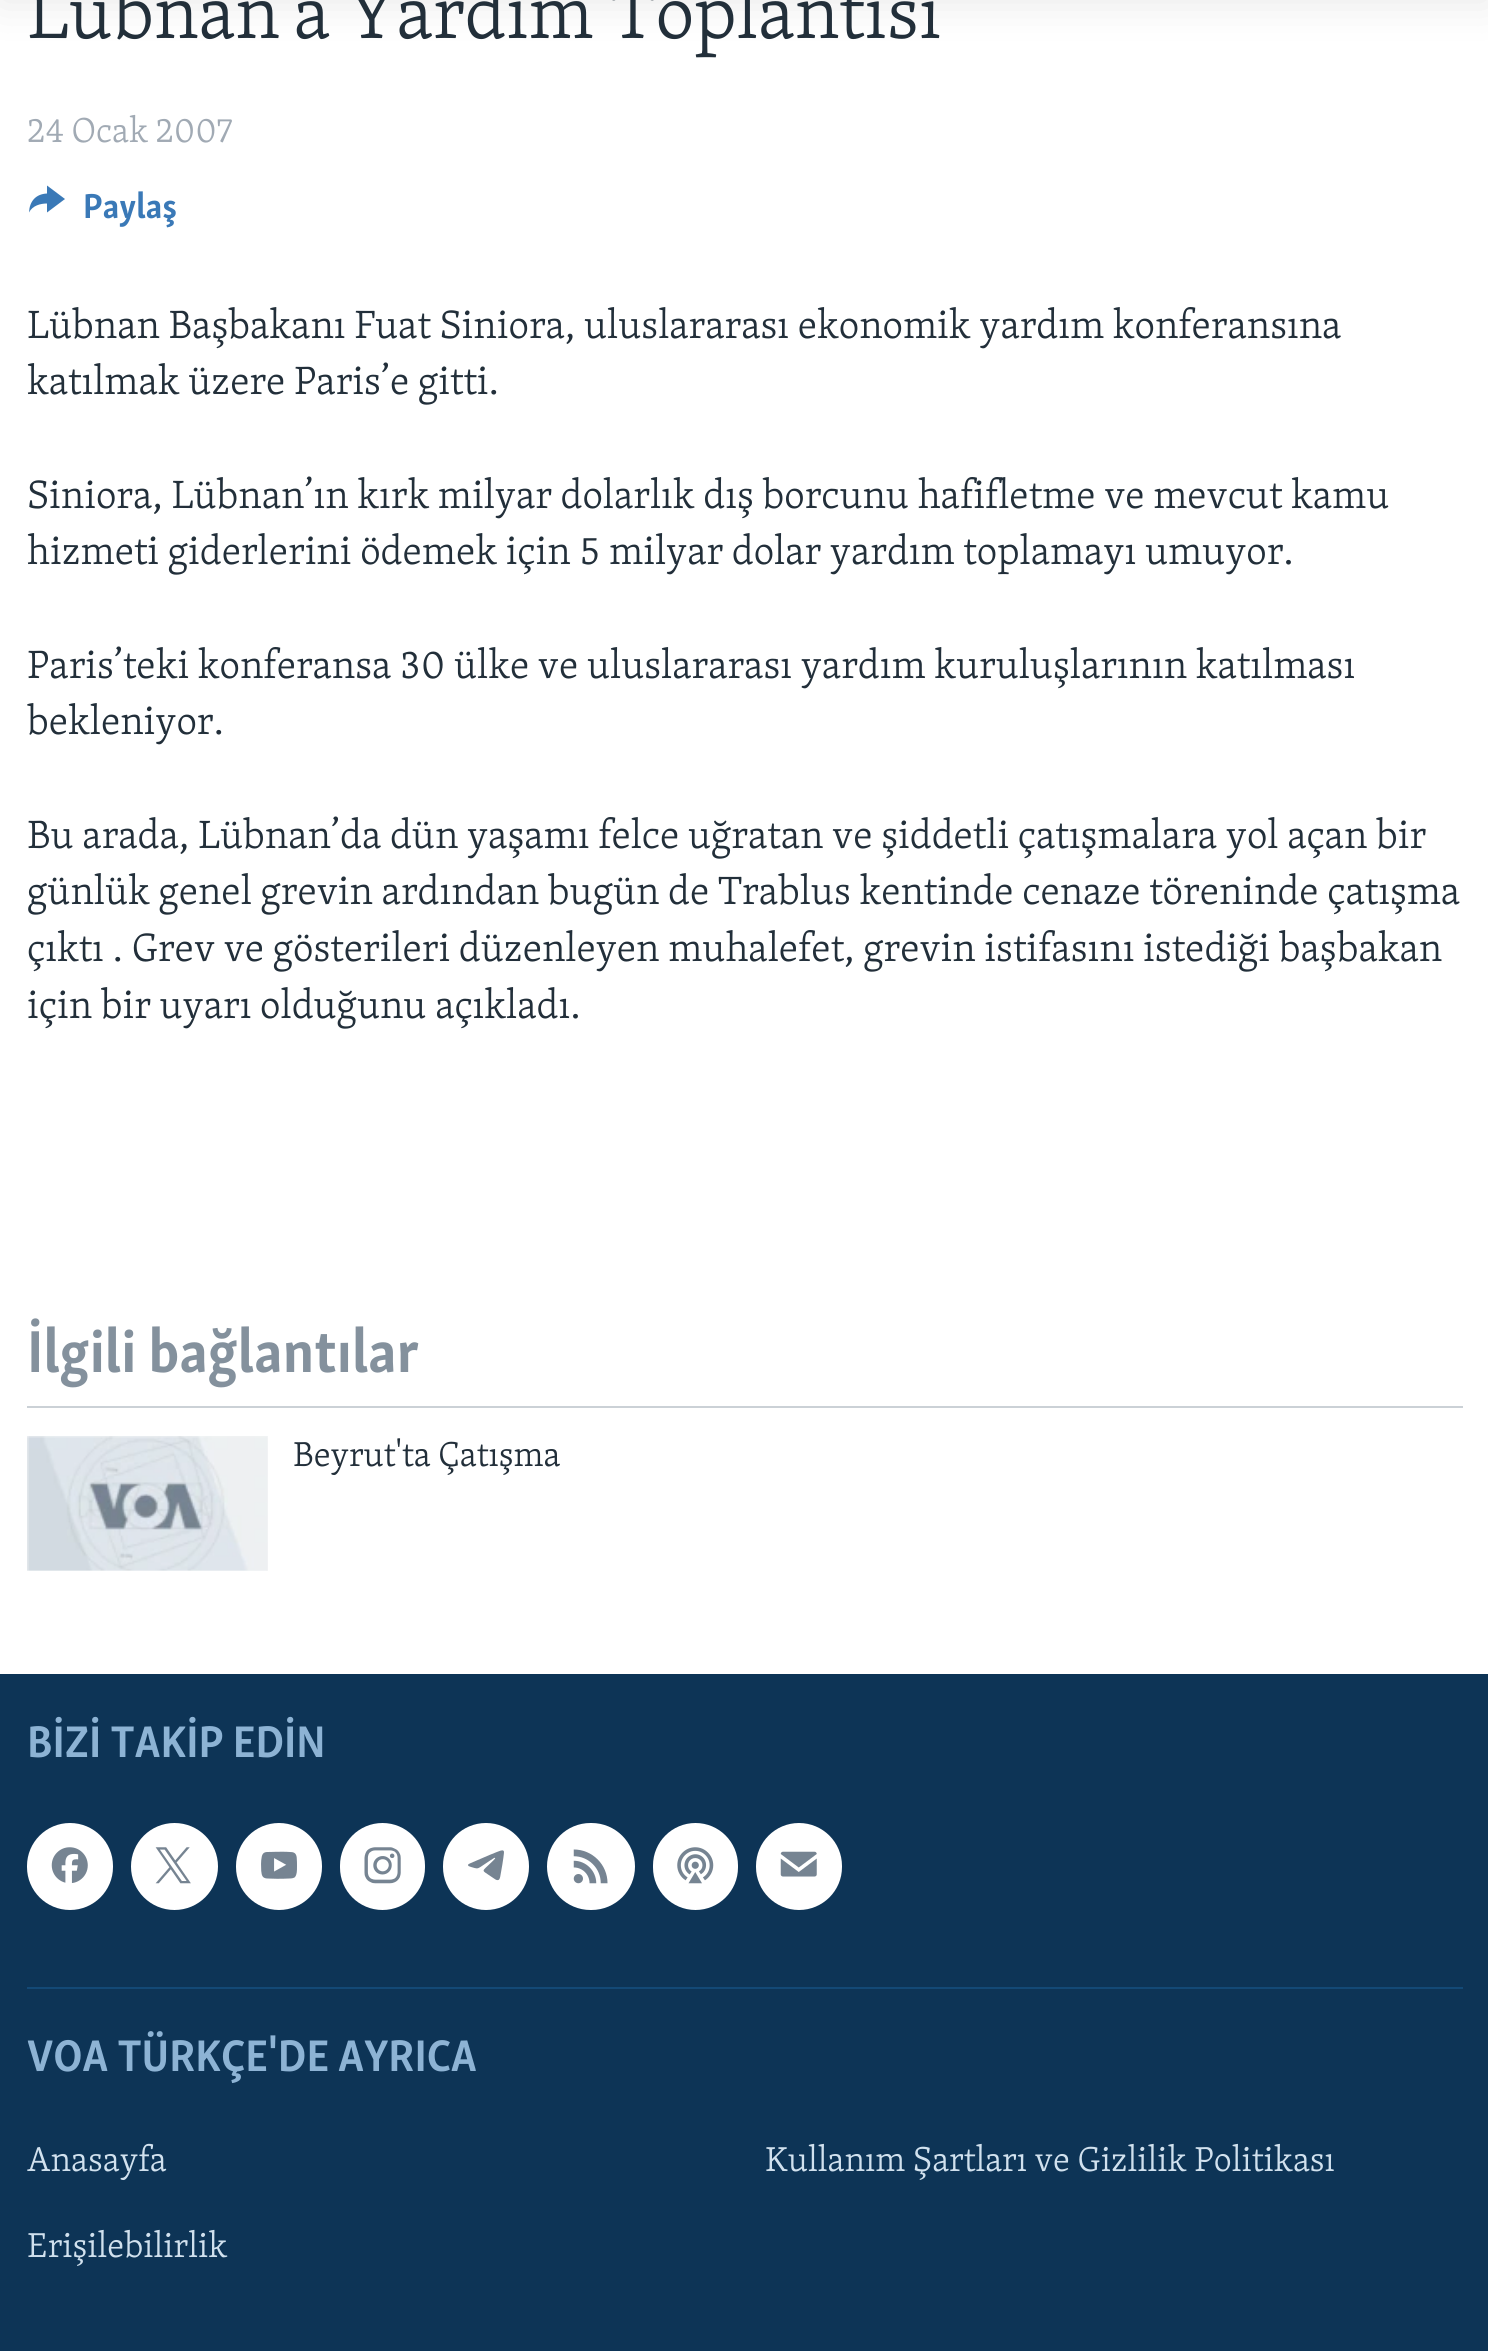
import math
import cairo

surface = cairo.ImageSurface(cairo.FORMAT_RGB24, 1488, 2351)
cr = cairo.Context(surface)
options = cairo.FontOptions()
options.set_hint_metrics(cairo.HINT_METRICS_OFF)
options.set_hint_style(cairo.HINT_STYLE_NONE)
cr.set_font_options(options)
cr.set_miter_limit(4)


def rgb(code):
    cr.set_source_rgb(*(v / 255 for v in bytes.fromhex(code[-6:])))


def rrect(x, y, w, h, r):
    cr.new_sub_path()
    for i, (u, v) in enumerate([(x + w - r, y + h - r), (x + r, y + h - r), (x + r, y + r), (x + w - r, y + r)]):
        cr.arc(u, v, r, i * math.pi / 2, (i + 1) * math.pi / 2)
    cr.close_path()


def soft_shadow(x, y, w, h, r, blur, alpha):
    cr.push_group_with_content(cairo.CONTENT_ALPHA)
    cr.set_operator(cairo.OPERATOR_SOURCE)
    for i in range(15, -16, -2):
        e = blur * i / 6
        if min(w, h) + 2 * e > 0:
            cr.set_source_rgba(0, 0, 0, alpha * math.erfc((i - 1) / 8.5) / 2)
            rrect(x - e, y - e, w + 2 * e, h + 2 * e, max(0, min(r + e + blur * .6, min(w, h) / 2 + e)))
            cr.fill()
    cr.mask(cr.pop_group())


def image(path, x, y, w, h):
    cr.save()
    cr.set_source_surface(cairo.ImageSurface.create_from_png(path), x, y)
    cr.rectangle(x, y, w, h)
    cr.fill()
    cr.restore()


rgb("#ffffff")
cr.paint()
rgb("#000000")
soft_shadow(0, -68, 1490, 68, 0, 22.5, 0.1)
rgb("#3a79b7")
cr.new_path()
cr.move_to(29, 212.5)
cr.curve_to(29.5, 201, 36, 194, 47, 193.5)
cr.line_to(47, 185.5)
cr.line_to(65, 199)
cr.line_to(47, 212.5)
cr.line_to(47, 203.5)
cr.curve_to(40.5, 203.5, 32.5, 205.5, 29, 212.5)
cr.close_path()
cr.fill()
rgb("#cbd1d6")
cr.rectangle(27, 1406, 1436, 2)
cr.fill()
rgb("#f6f7f8")
cr.rectangle(27, 1436, 241, 135)
cr.fill()
image("img/1.png", 27, 1436, 241, 135)
rgb("#0d3456")
cr.rectangle(0, 1674, 1488, 677)
cr.fill()
rgb("#ffffff")
rrect(27, 1823, 86, 87, 43)
cr.fill()
image("img/2.png", 51, 1847, 37, 36)
cr.arc(174.5, 1866.5, 43.5, 0, 2 * math.pi)
cr.fill()
image("img/3.png", 155, 1847, 36, 37)
rrect(236, 1823, 86, 87, 43)
cr.fill()
image("img/4.png", 261, 1851, 36, 28)
rrect(340, 1823, 85, 87, 42.5)
cr.fill()
image("img/5.png", 364, 1847, 37, 37)
rrect(443, 1823, 86, 87, 43)
cr.fill()
image("img/6.png", 468, 1850, 36, 31)
rrect(547, 1823, 88, 87, 43.5)
cr.fill()
image("img/7.png", 573, 1849, 35, 35)
rrect(653, 1823, 85, 87, 42.5)
cr.fill()
image("img/8.png", 677, 1847, 37, 37)
rrect(756, 1823, 86, 87, 43)
cr.fill()
image("img/9.png", 780, 1851, 37, 26)
rgb("#134976")
cr.rectangle(27, 1987, 1436, 2)
cr.fill()
cr.select_font_face("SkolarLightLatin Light")
cr.set_font_size(77)
rgb("#222f3a")
cr.move_to(27, 38)
cr.show_text("Lübnan'a Yardım Toplantısı")
cr.set_font_size(35.5)
rgb("#a1aab4")
cr.move_to(27, 142)
cr.show_text("24 Ocak 2007")
cr.select_font_face("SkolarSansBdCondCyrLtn", cairo.FONT_SLANT_NORMAL, cairo.FONT_WEIGHT_BOLD)
rgb("#3a79b7")
cr.move_to(83, 218)
cr.show_text("Paylaş")
cr.select_font_face("SkolarLightLatin Light")
cr.set_font_size(40.5)
rgb("#222f3a")
for x, y, s in [
    (27, 338, "Lübnan Başbakanı Fuat Siniora, uluslararası ekonomik yardım konferansına"),
    (27, 394, "katılmak üzere Paris’e gitti."),
    (27, 508, "Siniora, Lübnan’ın kırk milyar dolarlık dış borcunu hafifletme ve mevcut kamu"),
    (27, 564, "hizmeti giderlerini ödemek için 5 milyar dolar yardım toplamayı umuyor."),
    (27, 678, "Paris’teki konferansa 30 ülke ve uluslararası yardım kuruluşlarının katılması"),
    (27, 734, "bekleniyor."),
    (27, 848, "Bu arada, Lübnan’da dün yaşamı felce uğratan ve şiddetli çatışmalara yol açan bir"),
    (27, 904, "günlük genel grevin ardından bugün de Trablus kentinde cenaze töreninde çatışma"),
    (27, 961, "çıktı . Grev ve gösterileri düzenleyen muhalefet, grevin istifasını istediği başbakan"),
    (27, 1018, "için bir uyarı olduğunu açıkladı."),
]:
    cr.move_to(x, y)
    cr.show_text(s)
cr.select_font_face("SkolarSansBdCondCyrLtn", cairo.FONT_SLANT_NORMAL, cairo.FONT_WEIGHT_BOLD)
cr.set_font_size(60.75)
rgb("#84919d")
cr.move_to(27, 1372)
cr.show_text("İlgili bağlantılar")
cr.select_font_face("SkolarLightLatin Light")
cr.set_font_size(35.5)
rgb("#222f3a")
cr.move_to(293, 1466)
cr.show_text("Beyrut'ta Çatışma")
cr.select_font_face("SkolarSansBdCondCyrLtn", cairo.FONT_SLANT_NORMAL, cairo.FONT_WEIGHT_BOLD)
cr.set_font_size(45.5)
rgb("#8db3d4")
cr.move_to(27, 1757)
cr.show_text("BİZİ TAKİP EDİN")
cr.move_to(27, 2071)
cr.show_text("VOA TÜRKÇE'DE AYRICA")
cr.select_font_face("SkolarLightLatin Light")
cr.set_font_size(35.5)
rgb("#d1e1ee")
for x, y, s in [
    (27, 2171, "Anasayfa"),
    (765, 2171, "Kullanım Şartları ve Gizlilik Politikası"),
    (27, 2257, "Erişilebilirlik"),
]:
    cr.move_to(x, y)
    cr.show_text(s)
surface.write_to_png("page.png")
